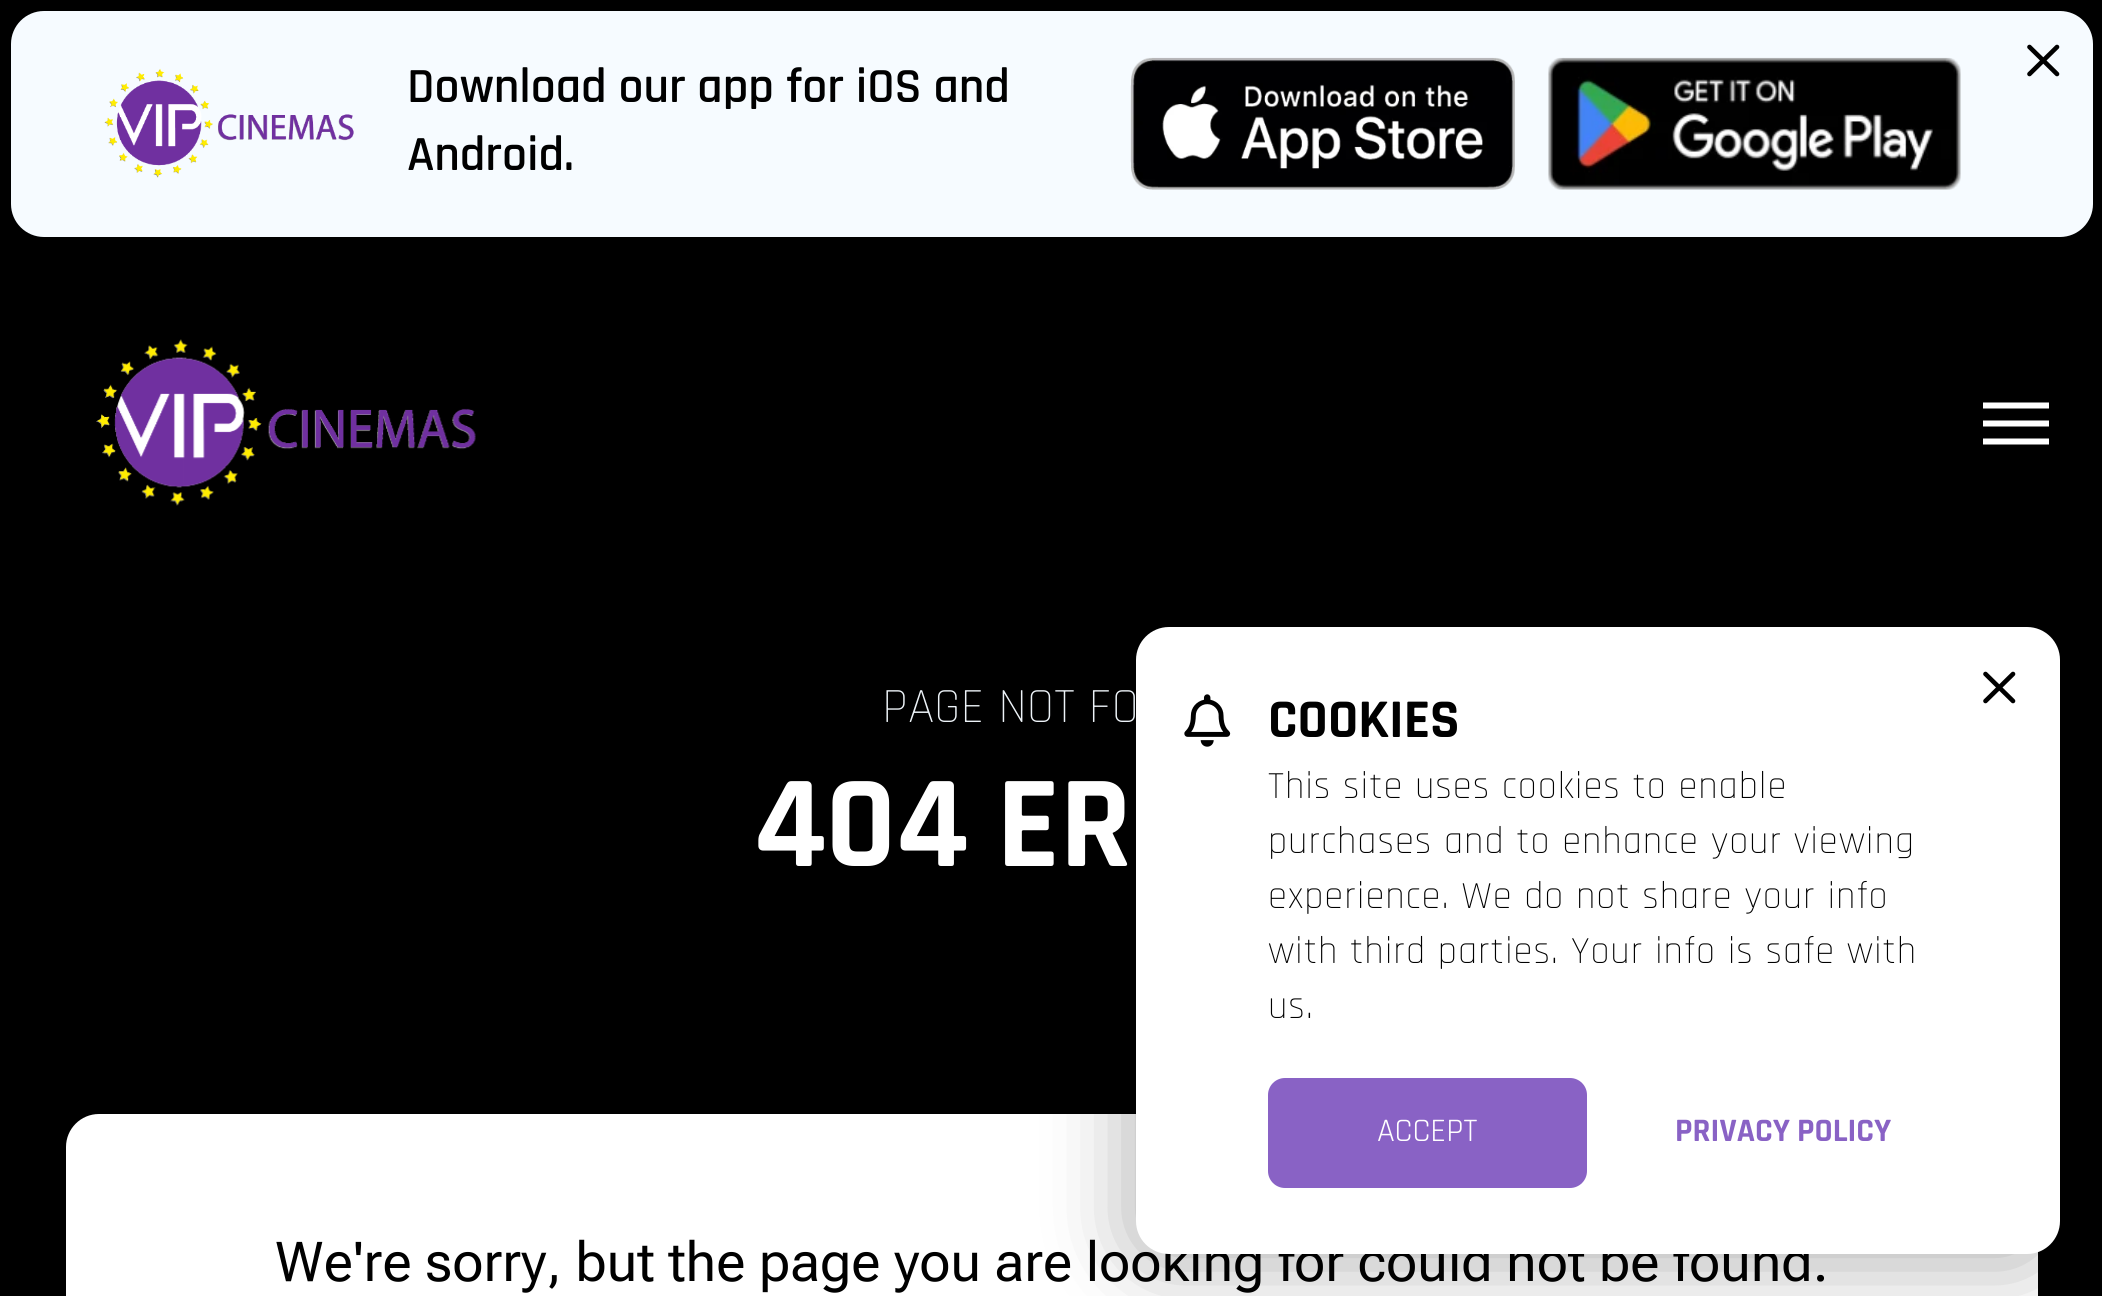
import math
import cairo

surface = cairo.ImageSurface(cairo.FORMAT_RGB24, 2102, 1296)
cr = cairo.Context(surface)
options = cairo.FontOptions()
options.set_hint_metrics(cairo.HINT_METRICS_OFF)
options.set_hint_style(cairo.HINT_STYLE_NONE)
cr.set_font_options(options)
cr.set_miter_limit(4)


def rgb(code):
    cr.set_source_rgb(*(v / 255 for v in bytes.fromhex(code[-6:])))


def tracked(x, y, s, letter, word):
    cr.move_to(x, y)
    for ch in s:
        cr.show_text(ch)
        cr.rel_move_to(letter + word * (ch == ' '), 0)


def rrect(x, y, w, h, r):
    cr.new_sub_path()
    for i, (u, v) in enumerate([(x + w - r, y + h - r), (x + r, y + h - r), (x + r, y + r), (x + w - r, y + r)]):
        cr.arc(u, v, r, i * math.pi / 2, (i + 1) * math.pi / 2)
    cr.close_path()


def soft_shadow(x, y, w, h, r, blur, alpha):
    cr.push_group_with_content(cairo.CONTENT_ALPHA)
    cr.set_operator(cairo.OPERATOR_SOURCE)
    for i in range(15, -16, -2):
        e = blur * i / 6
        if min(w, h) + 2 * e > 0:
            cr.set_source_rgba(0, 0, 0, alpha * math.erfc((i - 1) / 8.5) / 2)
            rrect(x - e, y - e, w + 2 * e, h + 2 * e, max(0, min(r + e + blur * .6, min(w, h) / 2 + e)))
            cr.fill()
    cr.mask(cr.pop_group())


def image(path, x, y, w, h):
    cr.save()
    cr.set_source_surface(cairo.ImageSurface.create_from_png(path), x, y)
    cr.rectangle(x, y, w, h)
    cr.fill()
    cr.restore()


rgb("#000000")
cr.paint()
rgb("#f6fbff")
rrect(11, 11, 2082, 226, 33)
cr.fill()
cr.new_path()
cr.move_to(2029.5, 74)
cr.line_to(2057, 47)
cr.move_to(2029.5, 47)
cr.line_to(2057, 74)
rgb("#000000")
cr.set_line_width(4.6)
cr.set_line_cap(cairo.LINE_CAP_ROUND)
cr.set_line_join(cairo.LINE_JOIN_ROUND)
cr.stroke()
image("img/1.png", 104, 68, 250, 110)
image("img/2.png", 1130, 57, 385, 133)
image("img/3.png", 1548, 57, 413, 133)
image("img/4.png", 96, 339, 380, 167)
cr.new_path()
cr.move_to(1983, 441.5)
cr.line_to(2049, 441.5)
cr.move_to(1983, 423.5)
cr.line_to(2049, 423.5)
cr.move_to(1983, 405.5)
cr.line_to(2049, 405.5)
rgb("#ffffff")
cr.set_line_width(6)
cr.set_line_cap(cairo.LINE_CAP_BUTT)
cr.set_line_join(cairo.LINE_JOIN_MITER)
cr.stroke()
rrect(66, 1114, 1972, 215, 33)
cr.fill()
rgb("#000000")
soft_shadow(1128, 638, 924, 627, 33, 41, 0.3)
cr.select_font_face("Rajdhani SemiBold")
cr.set_font_size(49.5)
rgb("#000000")
cr.move_to(407, 102)
cr.show_text("Download our app for iOS and")
cr.move_to(407, 170)
cr.show_text("Android.")
cr.select_font_face("Rajdhani Light")
rgb("#edf3f8")
cr.move_to(882, 722)
cr.show_text("PAGE NOT FO")
cr.select_font_face("Rajdhani", cairo.FONT_SLANT_NORMAL, cairo.FONT_WEIGHT_BOLD)
cr.set_font_size(132)
rgb("#ffffff")
cr.move_to(754, 866)
cr.show_text("404 ER")
cr.select_font_face("Roboto Flex")
cr.set_font_size(55)
rgb("#000000")
cr.move_to(275, 1281)
cr.show_text("We're sorry, but the page you are looking for could not be found.")
rgb("#ffffff")
rrect(1136, 627, 924, 627, 33)
cr.fill()
cr.new_path()
cr.move_to(1985.5, 701)
cr.line_to(2013, 674)
cr.move_to(1985.5, 674)
cr.line_to(2013, 701)
rgb("#000000")
cr.set_line_width(4.6)
cr.set_line_cap(cairo.LINE_CAP_ROUND)
cr.set_line_join(cairo.LINE_JOIN_ROUND)
cr.stroke()
image("img/5.png", 1184, 694, 47, 53)
cr.select_font_face("Rajdhani", cairo.FONT_SLANT_NORMAL, cairo.FONT_WEIGHT_BOLD)
cr.move_to(1268, 737)
cr.show_text("COOKIES")
cr.select_font_face("Rajdhani Light")
cr.set_font_size(38.5)
for x, y, s in [
    (1268, 798, "This site uses cookies to enable"),
    (1268, 853, "purchases and to enhance your viewing"),
    (1268, 908, "experience. We do not share your info"),
    (1268, 963, "with third parties. Your info is safe with"),
    (1268, 1018, "us."),
]:
    tracked(x, y, s, 0.95, 0)
rgb("#8962c5")
rrect(1268, 1078, 319, 110, 17)
cr.fill()
cr.select_font_face("Rajdhani")
cr.set_font_size(33)
rgb("#ffffff")
cr.move_to(1377, 1141)
cr.show_text("ACCEPT")
cr.select_font_face("Rajdhani", cairo.FONT_SLANT_NORMAL, cairo.FONT_WEIGHT_BOLD)
rgb("#8962c5")
cr.move_to(1675, 1141)
cr.show_text("PRIVACY POLICY")
surface.write_to_png("page.png")
